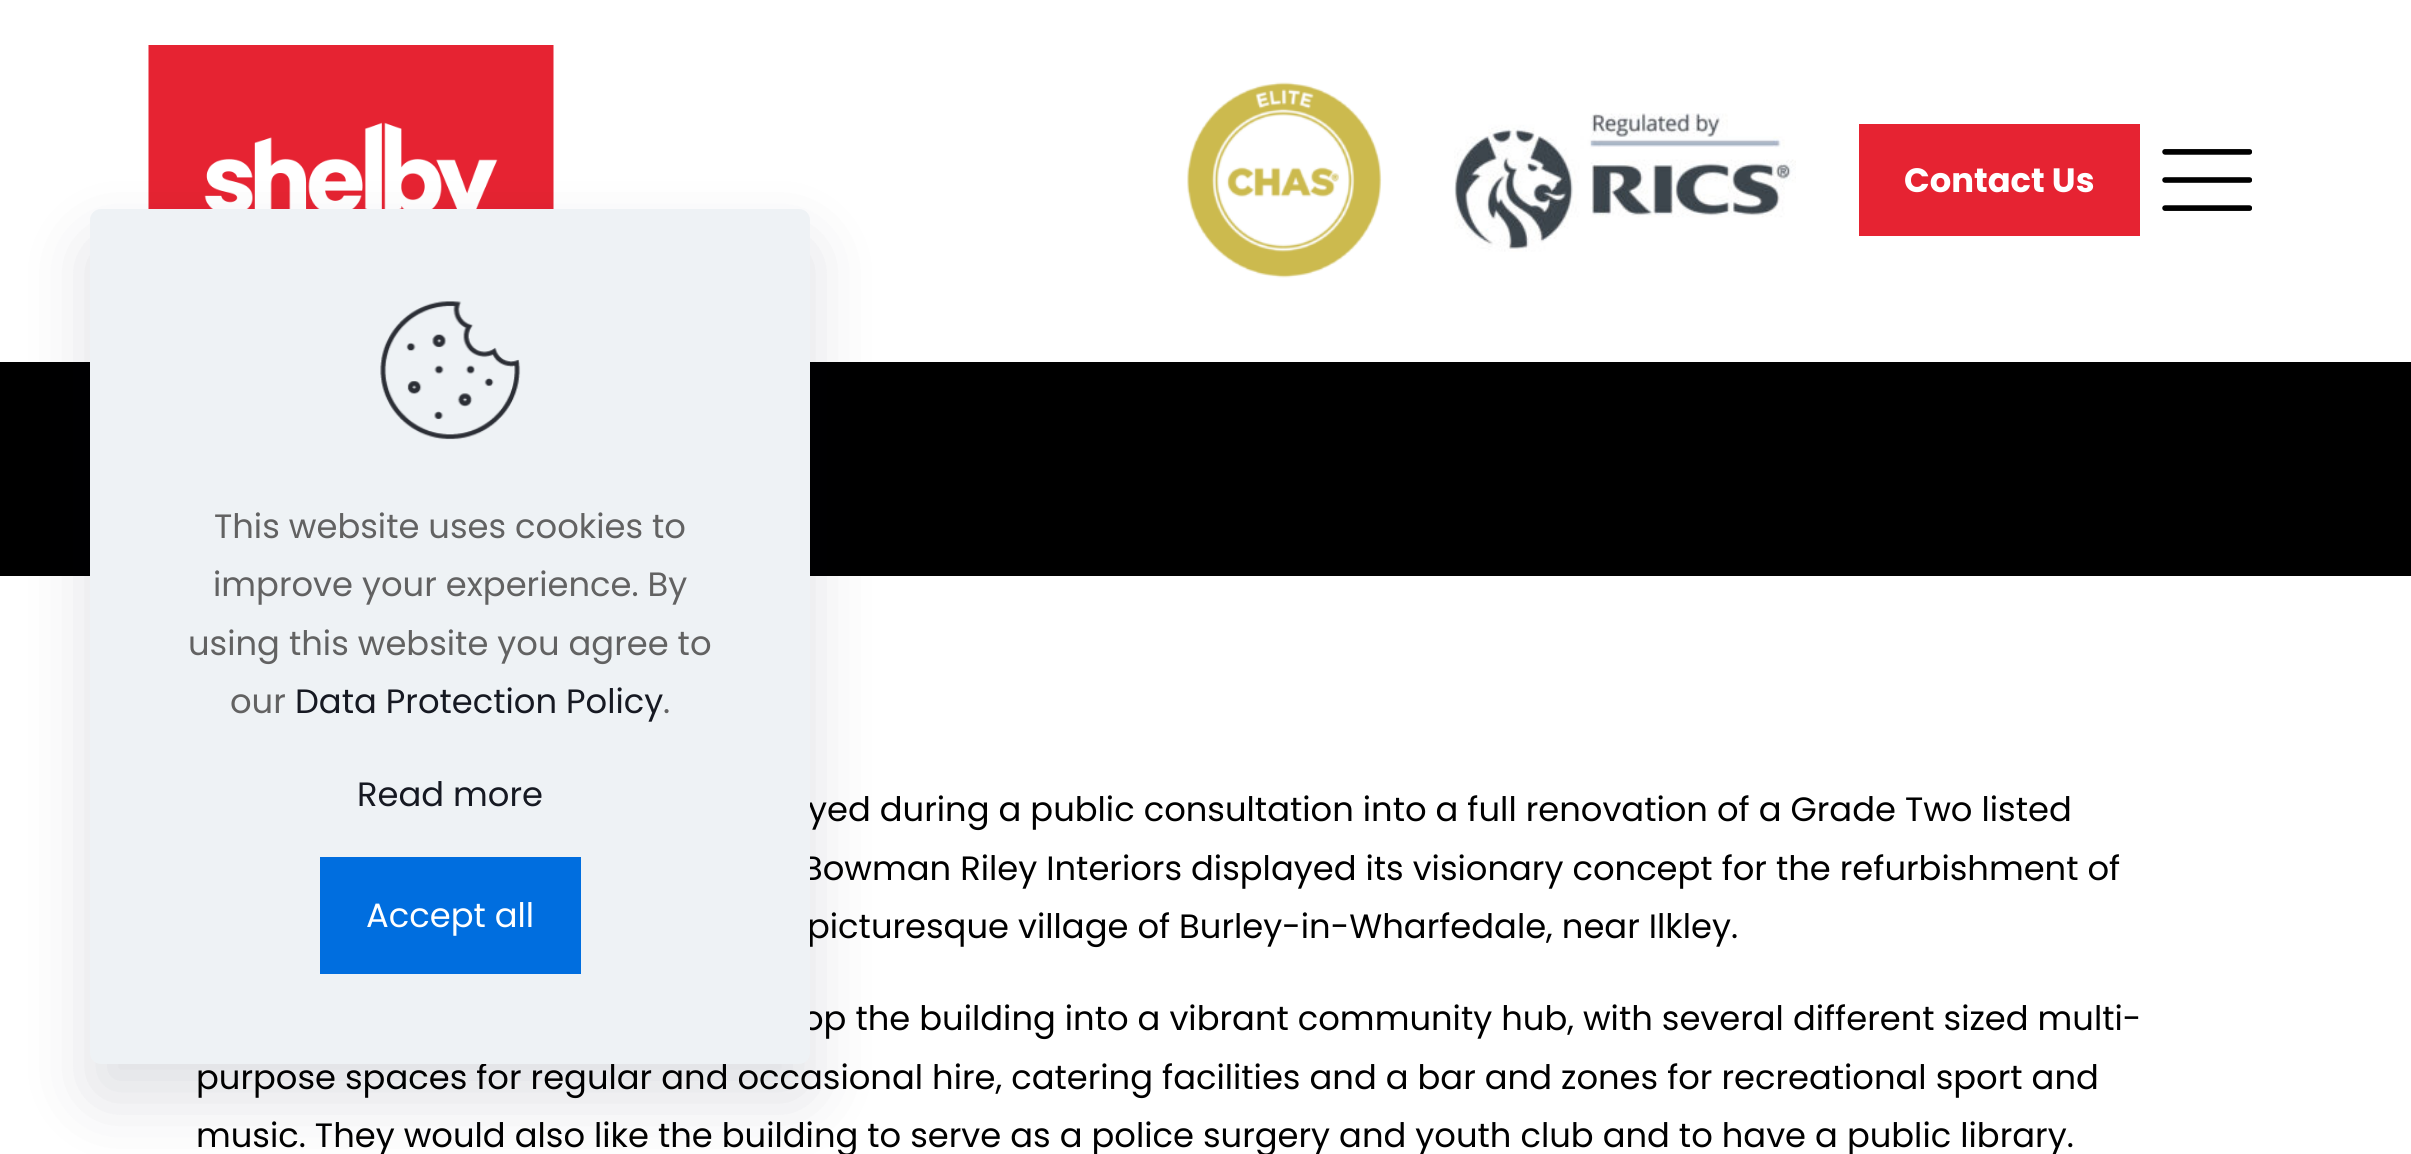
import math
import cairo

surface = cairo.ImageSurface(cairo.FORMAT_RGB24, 2411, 1154)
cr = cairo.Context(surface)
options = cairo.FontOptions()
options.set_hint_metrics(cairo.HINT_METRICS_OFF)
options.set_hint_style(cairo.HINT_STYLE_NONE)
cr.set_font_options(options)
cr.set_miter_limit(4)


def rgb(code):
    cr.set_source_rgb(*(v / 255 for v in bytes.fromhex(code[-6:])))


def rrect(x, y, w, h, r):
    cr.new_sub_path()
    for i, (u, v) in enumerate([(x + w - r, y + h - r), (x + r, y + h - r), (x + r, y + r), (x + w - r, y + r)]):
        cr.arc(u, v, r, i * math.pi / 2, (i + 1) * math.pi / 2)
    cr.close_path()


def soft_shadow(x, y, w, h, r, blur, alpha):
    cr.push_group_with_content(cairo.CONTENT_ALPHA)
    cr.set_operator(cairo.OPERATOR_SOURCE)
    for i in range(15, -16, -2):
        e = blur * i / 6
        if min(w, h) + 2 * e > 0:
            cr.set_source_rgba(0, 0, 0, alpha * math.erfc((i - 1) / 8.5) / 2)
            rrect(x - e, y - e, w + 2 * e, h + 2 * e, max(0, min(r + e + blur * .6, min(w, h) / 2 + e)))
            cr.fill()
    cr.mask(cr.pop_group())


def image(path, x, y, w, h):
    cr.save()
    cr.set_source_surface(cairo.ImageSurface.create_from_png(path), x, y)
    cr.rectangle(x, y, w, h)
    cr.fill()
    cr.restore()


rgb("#ffffff")
cr.paint()
image("img/1.png", 148, 45, 406, 164)
image("img/2.png", 1187, 82, 195, 196)
image("img/3.png", 1454, 113, 342, 139)
rgb("#e62332")
cr.rectangle(1859, 124, 281, 112)
cr.fill()
image("img/4.png", 2162, 149, 90, 62)
rgb("#000000")
cr.rectangle(0, 362, 2411, 214)
cr.fill()
rgb("#010727")
soft_shadow(90, 243, 720, 855, 11, 34, 0.13)
cr.select_font_face("Poppins", cairo.FONT_SLANT_NORMAL, cairo.FONT_WEIGHT_BOLD)
cr.set_font_size(33.75)
rgb("#ffffff")
cr.move_to(1904, 192)
cr.show_text("Contact Us")
cr.select_font_face("Poppins")
rgb("#000000")
for x, y, s in [
    (808, 821, "yed during a public consultation into a full renovation of a Grade Two listed"),
    (802, 880, "Bowman Riley Interiors displayed its visionary concept for the refurbishment of"),
    (807, 938, "picturesque village of Burley-in-Wharfedale, near Ilkley."),
    (802, 1030, "op the building into a vibrant community hub, with several different sized multi-"),
    (196, 1089, "purpose spaces for regular and occasional hire, catering facilities and a bar and zones for recreational sport and"),
    (196, 1147, "music. They would also like the building to serve as a police surgery and youth club and to have a public library."),
]:
    cr.move_to(x, y)
    cr.show_text(s)
rgb("#eef2f5")
rrect(90, 209, 720, 855, 11)
cr.fill()
image("img/5.png", 380, 301, 141, 139)
rgb("#626262")
for x, y, s in [
    (214, 538, "This website uses cookies to"),
    (213, 596, "improve your experience. By"),
    (188, 655, "using this website you agree to"),
    (230, 713, "our"),
]:
    cr.move_to(x, y)
    cr.show_text(s)
rgb("#161922")
cr.move_to(295, 713)
cr.show_text("Data Protection Policy")
rgb("#626262")
cr.move_to(663, 713)
cr.show_text(".")
rgb("#161922")
cr.move_to(357, 806)
cr.show_text("Read more")
rgb("#006edf")
cr.rectangle(320, 857, 261, 117)
cr.fill()
rgb("#ffffff")
cr.move_to(366, 927)
cr.show_text("Accept all")
surface.write_to_png("page.png")
